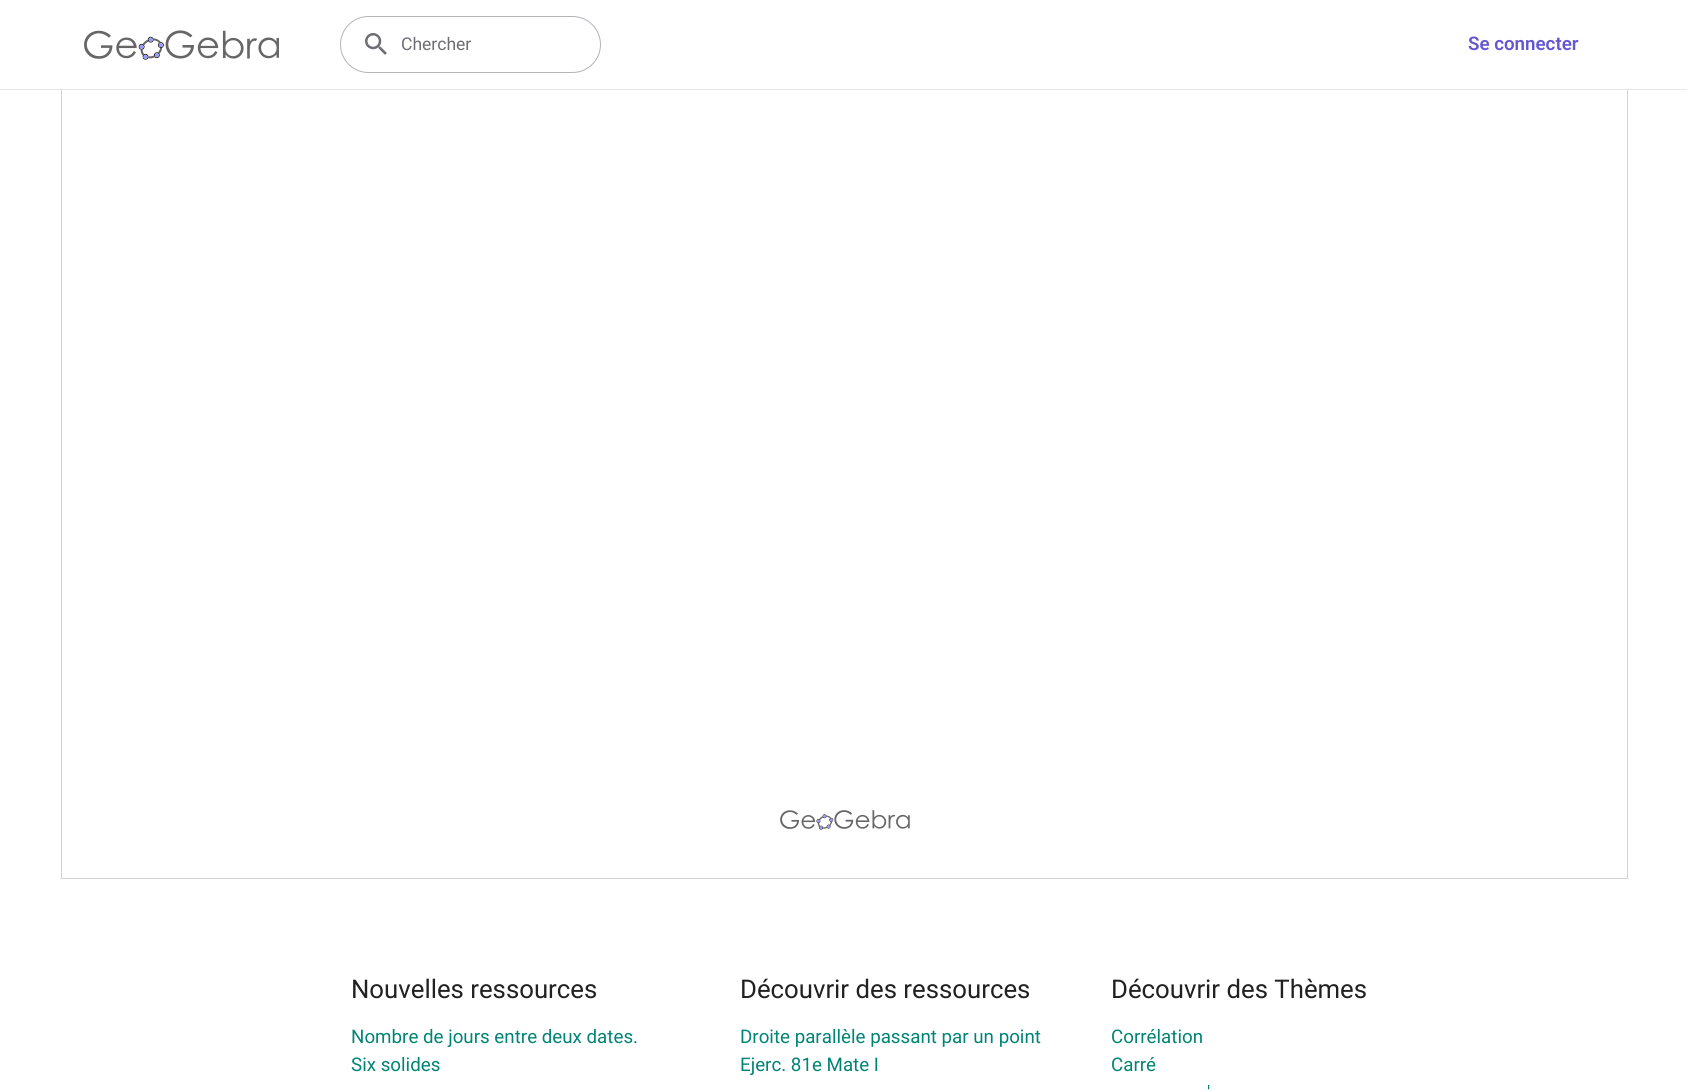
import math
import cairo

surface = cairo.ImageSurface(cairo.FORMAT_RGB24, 1687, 1091)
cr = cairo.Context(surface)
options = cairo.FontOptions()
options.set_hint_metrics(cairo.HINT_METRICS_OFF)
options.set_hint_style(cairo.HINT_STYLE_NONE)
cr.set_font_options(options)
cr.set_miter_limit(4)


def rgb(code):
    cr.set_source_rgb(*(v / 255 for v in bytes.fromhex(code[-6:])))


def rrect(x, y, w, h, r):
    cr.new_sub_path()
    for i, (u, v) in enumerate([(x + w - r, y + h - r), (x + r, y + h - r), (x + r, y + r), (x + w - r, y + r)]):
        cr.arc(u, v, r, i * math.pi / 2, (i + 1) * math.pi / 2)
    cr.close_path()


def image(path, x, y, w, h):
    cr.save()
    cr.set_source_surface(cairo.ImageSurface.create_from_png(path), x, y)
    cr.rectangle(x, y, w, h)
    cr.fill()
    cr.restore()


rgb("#ffffff")
cr.paint()
image("img/3.png", 780, 810, 130, 20)
cr.rectangle(61.5, -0.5, 1566, 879)
rgb("#d3d3d3")
cr.set_line_width(1)
cr.stroke()
rgb("#ffffff")
cr.rectangle(61, 0, 1567, 89)
cr.fill()
rgb("#e6e6eb")
cr.rectangle(0, 89, 1687, 1)
cr.fill()
image("img/1.png", 84, 30, 195, 30)
rrect(340.5, 16.5, 260, 56, 28)
rgb("#b4b3ba")
cr.stroke()
image("img/2.png", 365, 33, 22, 22)
cr.select_font_face("Roboto")
cr.set_font_size(17.5)
rgb("#6e6d73")
cr.move_to(401, 50)
cr.show_text("Chercher")
cr.select_font_face("Roboto SemiBold")
cr.set_font_size(18.75)
rgb("#6557d2")
cr.move_to(1468, 50)
cr.show_text("Se connecter")
cr.select_font_face("Roboto")
cr.set_font_size(25.75)
rgb("#212121")
cr.move_to(351, 998)
cr.show_text("Nouvelles ressources")
cr.set_font_size(18.75)
rgb("#008475")
cr.move_to(351, 1043)
cr.show_text("Nombre de jours entre deux dates.")
cr.move_to(351, 1071)
cr.show_text("Six solides")
cr.set_font_size(25.75)
rgb("#212121")
cr.move_to(740, 998)
cr.show_text("Découvrir des ressources")
cr.set_font_size(18.75)
rgb("#008475")
cr.move_to(740, 1043)
cr.show_text("Droite parallèle passant par un point")
cr.move_to(740, 1071)
cr.show_text("Ejerc. 81e Mate I")
cr.set_font_size(25.75)
rgb("#212121")
cr.move_to(1111, 998)
cr.show_text("Découvrir des Thèmes")
cr.set_font_size(18.75)
rgb("#008475")
for x, y, s in [
    (1111, 1043, "Corrélation"),
    (1111, 1071, "Carré"),
    (1207, 1099, "'"),
]:
    cr.move_to(x, y)
    cr.show_text(s)
surface.write_to_png("page.png")
